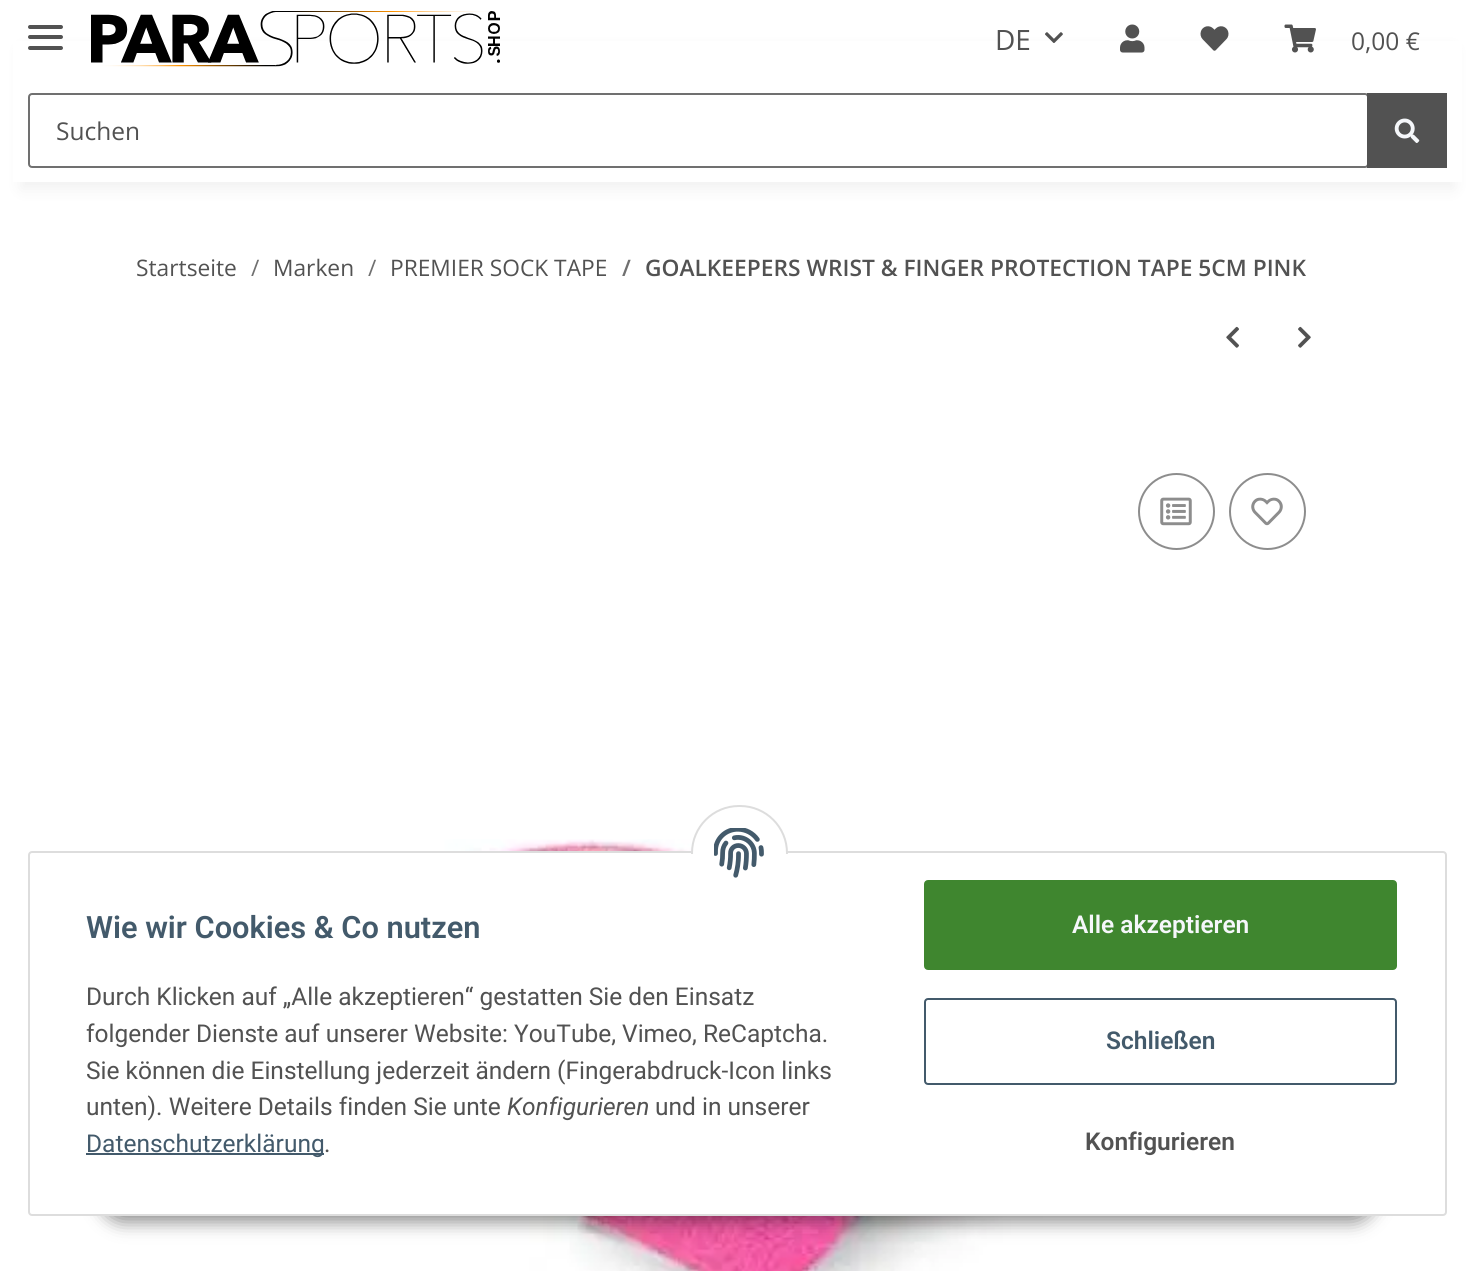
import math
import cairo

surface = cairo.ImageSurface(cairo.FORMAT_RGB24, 1475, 1271)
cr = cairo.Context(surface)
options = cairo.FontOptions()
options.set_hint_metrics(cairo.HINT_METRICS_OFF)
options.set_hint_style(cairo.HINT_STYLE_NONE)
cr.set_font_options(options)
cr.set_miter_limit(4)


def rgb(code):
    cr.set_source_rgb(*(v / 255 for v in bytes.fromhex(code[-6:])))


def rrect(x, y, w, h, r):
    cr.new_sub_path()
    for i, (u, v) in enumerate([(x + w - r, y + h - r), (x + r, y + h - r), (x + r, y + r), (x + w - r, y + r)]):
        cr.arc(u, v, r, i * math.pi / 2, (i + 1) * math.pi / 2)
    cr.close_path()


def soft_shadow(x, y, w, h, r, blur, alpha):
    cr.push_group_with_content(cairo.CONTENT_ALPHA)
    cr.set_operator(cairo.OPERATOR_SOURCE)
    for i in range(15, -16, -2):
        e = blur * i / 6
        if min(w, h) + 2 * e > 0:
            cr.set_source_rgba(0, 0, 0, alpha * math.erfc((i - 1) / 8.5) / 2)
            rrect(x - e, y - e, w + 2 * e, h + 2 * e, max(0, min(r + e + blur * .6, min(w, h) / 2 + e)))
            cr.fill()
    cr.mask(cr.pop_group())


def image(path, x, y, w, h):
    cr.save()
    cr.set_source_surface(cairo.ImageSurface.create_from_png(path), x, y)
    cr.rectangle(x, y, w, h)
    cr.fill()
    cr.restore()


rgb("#ffffff")
cr.paint()
rgb("#000000")
soft_shadow(21, 49, 1433, 140, 0, 8, 0.06)
rgb("#ffffff")
cr.rectangle(13, 41, 1449, 141)
cr.fill()
rgb("#525252")
rrect(28, 35, 35, 4, 2)
cr.fill()
rrect(28, 25, 35, 4, 2)
cr.fill()
rrect(28, 46, 35, 4, 2)
cr.fill()
image("img/1.png", 91, 11, 409, 56)
image("img/2.png", 1045, 32, 18, 11)
image("img/3.png", 1120, 24, 25, 29)
image("img/4.png", 1200, 26, 29, 25)
image("img/5.png", 1284, 24, 32, 29)
rrect(29, 94, 1339, 73, 3)
rgb("#707070")
cr.stroke()
rgb("#525252")
cr.rectangle(1367, 93, 80, 75)
cr.fill()
image("img/6.png", 1394, 118, 26, 25)
image("img/7.png", 1226, 326, 13, 22)
image("img/8.png", 1298, 326, 13, 22)
cr.arc(1176.5, 511.5, 37.5, 0, 2 * math.pi)
rgb("#8d8d8d")
cr.stroke()
image("img/9.png", 1160, 497, 32, 29)
cr.arc(1267.5, 511.5, 37.5, 0, 2 * math.pi)
cr.stroke()
image("img/10.png", 1251, 497, 32, 29)
image("img/11.png", 418, 839, 672, 432)
rgb("#000000")
soft_shadow(100, 1166, 1276, 56, 28, 9, 0.45)
rgb("#ffffff")
rrect(29, 852, 1417, 363, 3)
cr.fill_preserve()
rgb("#dddddd")
cr.stroke()
rgb("#ffffff")
rrect(692, 806, 95, 94, 47)
cr.fill_preserve()
rgb("#dddddd")
cr.stroke()
rgb("#ffffff")
cr.rectangle(691, 854, 97, 47)
cr.fill()
image("img/12.png", 714, 828, 50, 50)
rgb("#435a6b")
cr.rectangle(86, 1153, 238, 2)
cr.fill()
rgb("#3f862f")
rrect(925, 881, 471, 88, 3)
cr.fill_preserve()
cr.stroke()
rrect(925, 999, 471, 85, 3)
rgb("#435a6b")
cr.stroke()
cr.select_font_face("Open Sans")
cr.set_font_size(28)
rgb("#525252")
cr.move_to(995, 50)
cr.show_text("DE")
cr.set_font_size(24.5)
cr.move_to(1351, 50)
cr.show_text("0,00 €")
cr.move_to(56, 140)
cr.show_text("Suchen")
cr.set_font_size(22.75)
cr.move_to(136, 276)
cr.show_text("Startseite")
rgb("#707070")
cr.move_to(251, 276)
cr.show_text("/")
rgb("#525252")
cr.move_to(273, 276)
cr.show_text("Marken")
rgb("#707070")
cr.move_to(368, 276)
cr.show_text("/")
rgb("#525252")
cr.move_to(390, 276)
cr.show_text("PREMIER SOCK TAPE")
cr.select_font_face("Open Sans SemiBold")
rgb("#707070")
cr.move_to(622, 276)
cr.show_text("/")
rgb("#525252")
cr.move_to(645, 276)
cr.show_text("GOALKEEPERS WRIST & FINGER PROTECTION TAPE 5CM PINK")
cr.select_font_face("Roboto SemiBold")
cr.set_font_size(30.75)
rgb("#435a6b")
cr.move_to(86, 938)
cr.show_text("Wie wir Cookies & Co nutzen")
cr.select_font_face("Roboto")
cr.set_font_size(24.5)
rgb("#525252")
for x, y, s in [
    (86, 1005, "Durch Klicken auf „Alle akzeptieren“ gestatten Sie den Einsatz"),
    (86, 1042, "folgender Dienste auf unserer Website: YouTube, Vimeo, ReCaptcha."),
    (86, 1079, "Sie können die Einstellung jederzeit ändern (Fingerabdruck-Icon links"),
    (86, 1115, "unten). Weitere Details finden Sie unte"),
]:
    cr.move_to(x, y)
    cr.show_text(s)
cr.select_font_face("Roboto", cairo.FONT_SLANT_ITALIC)
cr.move_to(507, 1115)
cr.show_text("Konfigurieren")
cr.select_font_face("Roboto")
cr.move_to(655, 1115)
cr.show_text("und in unserer")
rgb("#435a6b")
cr.move_to(86, 1152)
cr.show_text("Datenschutzerklärung")
rgb("#525252")
cr.move_to(324, 1152)
cr.show_text(".")
cr.select_font_face("Roboto SemiBold")
rgb("#f5f7fa")
cr.move_to(1072, 933)
cr.show_text("Alle akzeptieren")
rgb("#435a6b")
cr.move_to(1106, 1049)
cr.show_text("Schließen")
rgb("#525252")
cr.move_to(1085, 1150)
cr.show_text("Konfigurieren")
surface.write_to_png("page.png")
